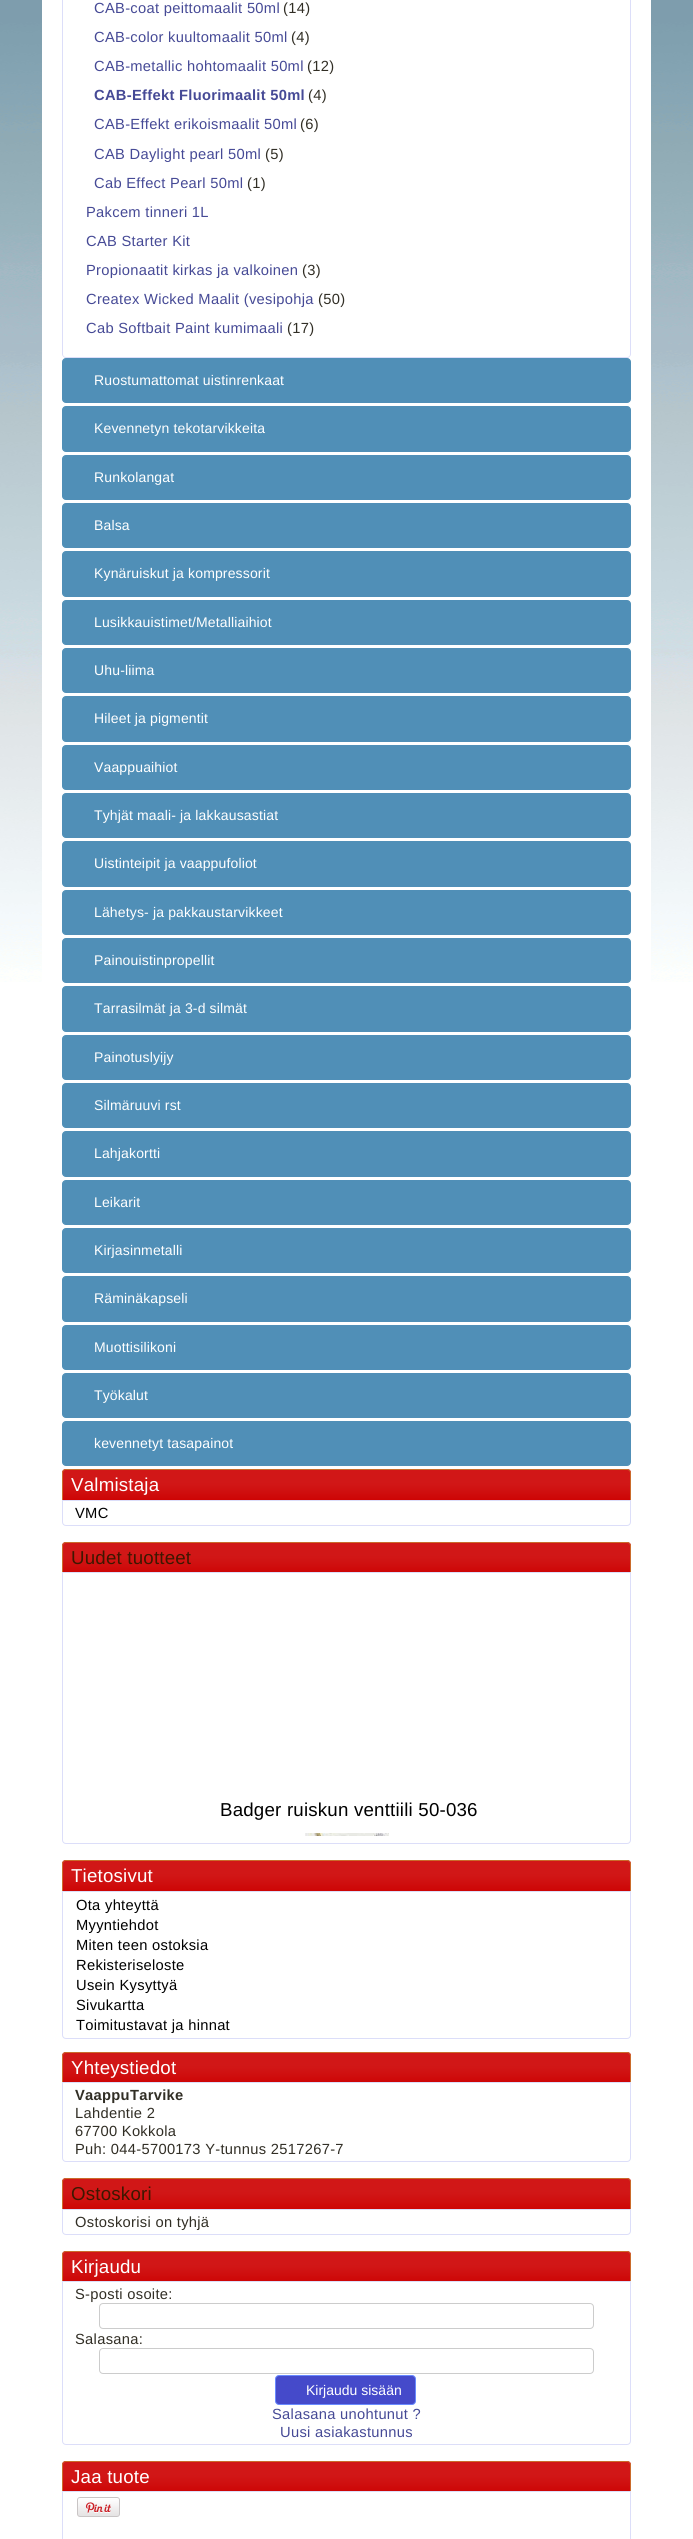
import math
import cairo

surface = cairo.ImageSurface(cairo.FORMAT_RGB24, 693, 2539)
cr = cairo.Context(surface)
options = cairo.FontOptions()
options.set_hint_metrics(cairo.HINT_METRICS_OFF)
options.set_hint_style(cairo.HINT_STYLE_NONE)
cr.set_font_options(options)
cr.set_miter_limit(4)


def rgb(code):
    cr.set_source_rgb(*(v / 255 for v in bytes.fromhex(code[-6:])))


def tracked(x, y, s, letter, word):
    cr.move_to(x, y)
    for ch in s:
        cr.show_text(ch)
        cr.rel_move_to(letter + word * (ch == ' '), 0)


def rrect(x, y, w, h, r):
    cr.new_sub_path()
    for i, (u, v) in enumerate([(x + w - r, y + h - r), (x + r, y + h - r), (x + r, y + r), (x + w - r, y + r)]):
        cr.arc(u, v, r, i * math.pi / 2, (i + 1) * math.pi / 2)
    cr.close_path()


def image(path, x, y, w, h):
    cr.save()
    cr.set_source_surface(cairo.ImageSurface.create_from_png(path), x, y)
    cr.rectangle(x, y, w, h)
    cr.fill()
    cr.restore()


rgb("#ffffff")
cr.paint()
image("img/1.png", 0, 0, 693, 982)
rgb("#ffffff")
cr.rectangle(42, 0, 609, 982)
cr.fill()
rgb("#dcdef9")
cr.set_fill_rule(cairo.FILL_RULE_EVEN_ODD)
cr.new_path()
cr.move_to(62, -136)
cr.line_to(631, -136)
cr.line_to(631, 354)
cr.curve_to(631, 356, 629, 358, 627, 358)
cr.line_to(66, 358)
cr.curve_to(64, 358, 62, 356, 62, 354)
cr.close_path()
cr.move_to(63, -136)
cr.line_to(630, -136)
cr.line_to(630, 354)
cr.curve_to(630, 356, 629, 357, 627, 357)
cr.line_to(66, 357)
cr.curve_to(64, 357, 63, 356, 63, 354)
cr.close_path()
cr.fill()
rgb("#508fb7")
rrect(62.5, 358.5, 568, 44, 3.5)
cr.fill_preserve()
cr.set_line_width(1)
cr.stroke()
rrect(62.5, 406.5, 568, 45, 3.5)
cr.fill_preserve()
cr.stroke()
rrect(62.5, 455.5, 568, 44, 3.5)
cr.fill_preserve()
cr.stroke()
rrect(62.5, 503.5, 568, 44, 3.5)
cr.fill_preserve()
cr.stroke()
rrect(62.5, 551.5, 568, 45, 3.5)
cr.fill_preserve()
cr.stroke()
rrect(62.5, 600.5, 568, 44, 3.5)
cr.fill_preserve()
cr.stroke()
rrect(62.5, 648.5, 568, 44, 3.5)
cr.fill_preserve()
cr.stroke()
rrect(62.5, 696.5, 568, 45, 3.5)
cr.fill_preserve()
cr.stroke()
rrect(62.5, 745.5, 568, 44, 3.5)
cr.fill_preserve()
cr.stroke()
rrect(62.5, 793.5, 568, 44, 3.5)
cr.fill_preserve()
cr.stroke()
rrect(62.5, 841.5, 568, 45, 3.5)
cr.fill_preserve()
cr.stroke()
rrect(62.5, 890.5, 568, 44, 3.5)
cr.fill_preserve()
cr.stroke()
rrect(62.5, 938.5, 568, 44, 3.5)
cr.fill_preserve()
cr.stroke()
rrect(62.5, 986.5, 568, 45, 3.5)
cr.fill_preserve()
cr.stroke()
rrect(62.5, 1035.5, 568, 44, 3.5)
cr.fill_preserve()
cr.stroke()
rrect(62.5, 1083.5, 568, 44, 3.5)
cr.fill_preserve()
cr.stroke()
rrect(62.5, 1131.5, 568, 45, 3.5)
cr.fill_preserve()
cr.stroke()
rrect(62.5, 1180.5, 568, 44, 3.5)
cr.fill_preserve()
cr.stroke()
rrect(62.5, 1228.5, 568, 44, 3.5)
cr.fill_preserve()
cr.stroke()
rrect(62.5, 1276.5, 568, 45, 3.5)
cr.fill_preserve()
cr.stroke()
rrect(62.5, 1325.5, 568, 44, 3.5)
cr.fill_preserve()
cr.stroke()
rrect(62.5, 1373.5, 568, 44, 3.5)
cr.fill_preserve()
cr.stroke()
rrect(62.5, 1421.5, 568, 44, 3.5)
cr.fill_preserve()
cr.stroke()
image("img/2.png", 62, 1469, 569, 31)
rgb("#ca6b2b")
cr.new_path()
cr.move_to(66, 1469)
cr.line_to(627, 1469)
cr.curve_to(629, 1469, 631, 1471, 631, 1473)
cr.line_to(631, 1500)
cr.line_to(62, 1500)
cr.line_to(62, 1473)
cr.curve_to(62, 1471, 64, 1469, 66, 1469)
cr.close_path()
cr.move_to(66, 1470)
cr.line_to(627, 1470)
cr.curve_to(629, 1470, 630, 1471, 630, 1473)
cr.line_to(630, 1500)
cr.line_to(63, 1500)
cr.line_to(63, 1473)
cr.curve_to(63, 1471, 64, 1470, 66, 1470)
cr.close_path()
cr.fill()
cr.new_path()
cr.move_to(62.5, 1500.5)
cr.line_to(630.5, 1500.5)
cr.line_to(630.5, 1522)
cr.curve_to(630.5, 1524, 629, 1525.5, 627, 1525.5)
cr.line_to(66, 1525.5)
cr.curve_to(64, 1525.5, 62.5, 1524, 62.5, 1522)
cr.close_path()
rgb("#dcdef9")
cr.stroke()
image("img/3.png", 62, 1542, 569, 30)
rgb("#ca6b2b")
cr.new_path()
cr.move_to(66, 1542)
cr.line_to(627, 1542)
cr.curve_to(629, 1542, 631, 1544, 631, 1546)
cr.line_to(631, 1572)
cr.line_to(62, 1572)
cr.line_to(62, 1546)
cr.curve_to(62, 1544, 64, 1542, 66, 1542)
cr.close_path()
cr.move_to(66, 1543)
cr.line_to(627, 1543)
cr.curve_to(629, 1543, 630, 1544, 630, 1546)
cr.line_to(630, 1572)
cr.line_to(63, 1572)
cr.line_to(63, 1546)
cr.curve_to(63, 1544, 64, 1543, 66, 1543)
cr.close_path()
cr.fill()
cr.new_path()
cr.move_to(62.5, 1572.5)
cr.line_to(630.5, 1572.5)
cr.line_to(630.5, 1840)
cr.curve_to(630.5, 1842, 629, 1843.5, 627, 1843.5)
cr.line_to(66, 1843.5)
cr.curve_to(64, 1843.5, 62.5, 1842, 62.5, 1840)
cr.close_path()
rgb("#dcdef9")
cr.stroke()
image("img/4.png", 305, 1833, 84, 3)
image("img/2.png", 62, 1860, 569, 31)
rgb("#ca6b2b")
cr.new_path()
cr.move_to(66, 1860)
cr.line_to(627, 1860)
cr.curve_to(629, 1860, 631, 1862, 631, 1864)
cr.line_to(631, 1891)
cr.line_to(62, 1891)
cr.line_to(62, 1864)
cr.curve_to(62, 1862, 64, 1860, 66, 1860)
cr.close_path()
cr.move_to(66, 1861)
cr.line_to(627, 1861)
cr.curve_to(629, 1861, 630, 1862, 630, 1864)
cr.line_to(630, 1891)
cr.line_to(63, 1891)
cr.line_to(63, 1864)
cr.curve_to(63, 1862, 64, 1861, 66, 1861)
cr.close_path()
cr.fill()
cr.new_path()
cr.move_to(62.5, 1891.5)
cr.line_to(630.5, 1891.5)
cr.line_to(630.5, 2035)
cr.curve_to(630.5, 2037, 629, 2038.5, 627, 2038.5)
cr.line_to(66, 2038.5)
cr.curve_to(64, 2038.5, 62.5, 2037, 62.5, 2035)
cr.close_path()
rgb("#dcdef9")
cr.stroke()
image("img/3.png", 62, 2052, 569, 30)
rgb("#ca6b2b")
cr.new_path()
cr.move_to(66, 2052)
cr.line_to(627, 2052)
cr.curve_to(629, 2052, 631, 2054, 631, 2056)
cr.line_to(631, 2082)
cr.line_to(62, 2082)
cr.line_to(62, 2056)
cr.curve_to(62, 2054, 64, 2052, 66, 2052)
cr.close_path()
cr.move_to(66, 2053)
cr.line_to(627, 2053)
cr.curve_to(629, 2053, 630, 2054, 630, 2056)
cr.line_to(630, 2082)
cr.line_to(63, 2082)
cr.line_to(63, 2056)
cr.curve_to(63, 2054, 64, 2053, 66, 2053)
cr.close_path()
cr.fill()
cr.new_path()
cr.move_to(62.5, 2082.5)
cr.line_to(630.5, 2082.5)
cr.line_to(630.5, 2158)
cr.curve_to(630.5, 2160, 629, 2161.5, 627, 2161.5)
cr.line_to(66, 2161.5)
cr.curve_to(64, 2161.5, 62.5, 2160, 62.5, 2158)
cr.close_path()
rgb("#dcdef9")
cr.stroke()
image("img/2.png", 62, 2178, 569, 31)
rgb("#ca6b2b")
cr.new_path()
cr.move_to(66, 2178)
cr.line_to(627, 2178)
cr.curve_to(629, 2178, 631, 2180, 631, 2182)
cr.line_to(631, 2209)
cr.line_to(62, 2209)
cr.line_to(62, 2182)
cr.curve_to(62, 2180, 64, 2178, 66, 2178)
cr.close_path()
cr.move_to(66, 2179)
cr.line_to(627, 2179)
cr.curve_to(629, 2179, 630, 2180, 630, 2182)
cr.line_to(630, 2209)
cr.line_to(63, 2209)
cr.line_to(63, 2182)
cr.curve_to(63, 2180, 64, 2179, 66, 2179)
cr.close_path()
cr.fill()
cr.new_path()
cr.move_to(62.5, 2209.5)
cr.line_to(630.5, 2209.5)
cr.line_to(630.5, 2231)
cr.curve_to(630.5, 2233, 629, 2234.5, 627, 2234.5)
cr.line_to(66, 2234.5)
cr.curve_to(64, 2234.5, 62.5, 2233, 62.5, 2231)
cr.close_path()
rgb("#dcdef9")
cr.stroke()
image("img/5.png", 62, 2251, 569, 30)
rgb("#ca6b2b")
cr.new_path()
cr.move_to(66, 2251)
cr.line_to(627, 2251)
cr.curve_to(629, 2251, 631, 2253, 631, 2255)
cr.line_to(631, 2281)
cr.line_to(62, 2281)
cr.line_to(62, 2255)
cr.curve_to(62, 2253, 64, 2251, 66, 2251)
cr.close_path()
cr.move_to(66, 2252)
cr.line_to(627, 2252)
cr.curve_to(629, 2252, 630, 2253, 630, 2255)
cr.line_to(630, 2281)
cr.line_to(63, 2281)
cr.line_to(63, 2255)
cr.curve_to(63, 2253, 64, 2252, 66, 2252)
cr.close_path()
cr.fill()
cr.new_path()
cr.move_to(62.5, 2281.5)
cr.line_to(630.5, 2281.5)
cr.line_to(630.5, 2441)
cr.curve_to(630.5, 2443, 629, 2444.5, 627, 2444.5)
cr.line_to(66, 2444.5)
cr.curve_to(64, 2444.5, 62.5, 2443, 62.5, 2441)
cr.close_path()
rgb("#dcdef9")
cr.stroke()
rrect(99.5, 2303.5, 494, 25, 3.5)
rgb("#cccccc")
cr.stroke()
rrect(99.5, 2348.5, 494, 25, 3.5)
cr.stroke()
rgb("#454aca")
rrect(275.5, 2375.5, 140, 29, 3.5)
cr.fill_preserve()
rgb("#698aff")
cr.stroke()
image("img/3.png", 62, 2461, 569, 30)
rgb("#ca6b2b")
cr.new_path()
cr.move_to(66, 2461)
cr.line_to(627, 2461)
cr.curve_to(629, 2461, 631, 2463, 631, 2465)
cr.line_to(631, 2491)
cr.line_to(62, 2491)
cr.line_to(62, 2465)
cr.curve_to(62, 2463, 64, 2461, 66, 2461)
cr.close_path()
cr.move_to(66, 2462)
cr.line_to(627, 2462)
cr.curve_to(629, 2462, 630, 2463, 630, 2465)
cr.line_to(630, 2491)
cr.line_to(63, 2491)
cr.line_to(63, 2465)
cr.curve_to(63, 2463, 64, 2462, 66, 2462)
cr.close_path()
cr.fill()
cr.rectangle(62.5, 2491.5, 568, 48)
rgb("#dcdef9")
cr.stroke()
image("img/6.png", 77, 2497, 43, 20)
cr.select_font_face("Liberation Sans")
cr.set_font_size(14.7)
rgb("#464a96")
tracked(94, 13, "CAB-coat peittomaalit 50ml", 0.3, 0)
rgb("#312e25")
tracked(283, 13, "(14)", 0.3, 0)
rgb("#464a96")
tracked(94, 42, "CAB-color kuultomaalit 50ml", 0.3, 0)
rgb("#312e25")
tracked(291, 42, "(4)", 0.3, 0)
rgb("#464a96")
tracked(94, 71, "CAB-metallic hohtomaalit 50ml", 0.3, 0)
rgb("#312e25")
tracked(307, 71, "(12)", 0.3, 0)
cr.select_font_face("Liberation Sans", cairo.FONT_SLANT_NORMAL, cairo.FONT_WEIGHT_BOLD)
rgb("#464a96")
tracked(94, 100, "CAB-Effekt Fluorimaalit 50ml", 0.3, 0)
cr.select_font_face("Liberation Sans")
rgb("#312e25")
tracked(308, 100, "(4)", 0.3, 0)
rgb("#464a96")
tracked(94, 129, "CAB-Effekt erikoismaalit 50ml", 0.3, 0)
rgb("#312e25")
tracked(300, 129, "(6)", 0.3, 0)
rgb("#464a96")
tracked(94, 159, "CAB Daylight pearl 50ml", 0.3, 0)
rgb("#312e25")
tracked(265, 159, "(5)", 0.3, 0)
rgb("#464a96")
tracked(94, 188, "Cab Effect Pearl 50ml", 0.3, 0)
rgb("#312e25")
tracked(247, 188, "(1)", 0.3, 0)
rgb("#464a96")
for x, y, s in [
    (86, 217, "Pakcem tinneri 1L"),
    (86, 246, "CAB Starter Kit"),
    (86, 275, "Propionaatit kirkas ja valkoinen"),
]:
    tracked(x, y, s, 0.3, 0)
rgb("#312e25")
tracked(302, 275, "(3)", 0.3, 0)
rgb("#464a96")
tracked(86, 304, "Createx Wicked Maalit (vesipohja", 0.3, 0)
rgb("#312e25")
tracked(318, 304, "(50)", 0.3, 0)
rgb("#464a96")
tracked(86, 333, "Cab Softbait Paint kumimaali", 0.3, 0)
rgb("#312e25")
tracked(287, 333, "(17)", 0.3, 0)
cr.set_font_size(14)
rgb("#ffffff")
for x, y, s in [
    (94, 385, "Ruostumattomat uistinrenkaat"),
    (94, 433, "Kevennetyn tekotarvikkeita"),
    (94, 482, "Runkolangat"),
    (94, 530, "Balsa"),
    (94, 578, "Kynäruiskut ja kompressorit"),
    (94, 627, "Lusikkauistimet/Metalliaihiot"),
    (94, 675, "Uhu-liima"),
    (94, 723, "Hileet ja pigmentit"),
    (94, 772, "Vaappuaihiot"),
    (94, 820, "Tyhjät maali- ja lakkausastiat"),
    (94, 868, "Uistinteipit ja vaappufoliot"),
    (94, 917, "Lähetys- ja pakkaustarvikkeet"),
    (94, 965, "Painouistinpropellit"),
    (94, 1013, "Tarrasilmät ja 3-d silmät"),
    (94, 1062, "Painotuslyijy"),
    (94, 1110, "Silmäruuvi rst"),
    (94, 1158, "Lahjakortti"),
    (94, 1207, "Leikarit"),
    (94, 1255, "Kirjasinmetalli"),
    (94, 1303, "Räminäkapseli"),
    (94, 1352, "Muottisilikoni"),
    (94, 1400, "Työkalut"),
    (94, 1448, "kevennetyt tasapainot"),
]:
    tracked(x, y, s, 0.15, 0)
cr.set_font_size(18.7)
tracked(71, 1491, "Valmistaja", 0.2, 0)
cr.set_font_size(14.7)
rgb("#000000")
tracked(75, 1518, "VMC", 0.3, 0)
cr.set_font_size(18.7)
rgb("#3e1700")
tracked(71, 1564, "Uudet tuotteet", 0.2, 0)
rgb("#000000")
tracked(220, 1816, "Badger ruiskun venttiili 50-036", 0.2, 0)
rgb("#ffffff")
tracked(71, 1882, "Tietosivut", 0.2, 0)
cr.set_font_size(14.7)
rgb("#000000")
for x, y, s in [
    (76, 1910, "Ota yhteyttä"),
    (76, 1930, "Myyntiehdot"),
    (76, 1950, "Miten teen ostoksia"),
    (76, 1970, "Rekisteriseloste"),
    (76, 1990, "Usein Kysyttyä"),
    (76, 2010, "Sivukartta"),
    (76, 2030, "Toimitustavat ja hinnat"),
]:
    tracked(x, y, s, 0.3, 0)
cr.set_font_size(18.7)
rgb("#ffffff")
tracked(71, 2074, "Yhteystiedot", 0.2, 0)
cr.select_font_face("Liberation Sans", cairo.FONT_SLANT_NORMAL, cairo.FONT_WEIGHT_BOLD)
cr.set_font_size(14.7)
rgb("#312e25")
tracked(75, 2100, "VaappuTarvike", 0.3, 0)
cr.select_font_face("Liberation Sans")
for x, y, s in [
    (75, 2118, "Lahdentie 2"),
    (75, 2136, "67700 Kokkola"),
    (75, 2154, "Puh: 044-5700173 Y-tunnus 2517267-7"),
]:
    tracked(x, y, s, 0.3, 0)
cr.set_font_size(18.7)
rgb("#3e1700")
tracked(71, 2200, "Ostoskori", 0.2, 0)
cr.set_font_size(14.7)
rgb("#312e25")
tracked(75, 2227, "Ostoskorisi on tyhjä", 0.3, 0)
cr.set_font_size(18.7)
rgb("#ffffff")
tracked(71, 2273, "Kirjaudu", 0.2, 0)
cr.set_font_size(14.7)
rgb("#312e25")
tracked(75, 2299, "S-posti osoite:", 0.3, 0)
tracked(75, 2344, "Salasana:", 0.3, 0)
cr.set_font_size(14)
rgb("#ffffff")
cr.move_to(306, 2395)
cr.show_text("Kirjaudu sisään")
cr.set_font_size(14.7)
rgb("#464a96")
tracked(272, 2419, "Salasana unohtunut ?", 0.3, 0)
tracked(280, 2437, "Uusi asiakastunnus", 0.3, 0)
cr.set_font_size(18.7)
rgb("#ffffff")
tracked(71, 2483, "Jaa tuote", 0.2, 0)
surface.write_to_png("page.png")
